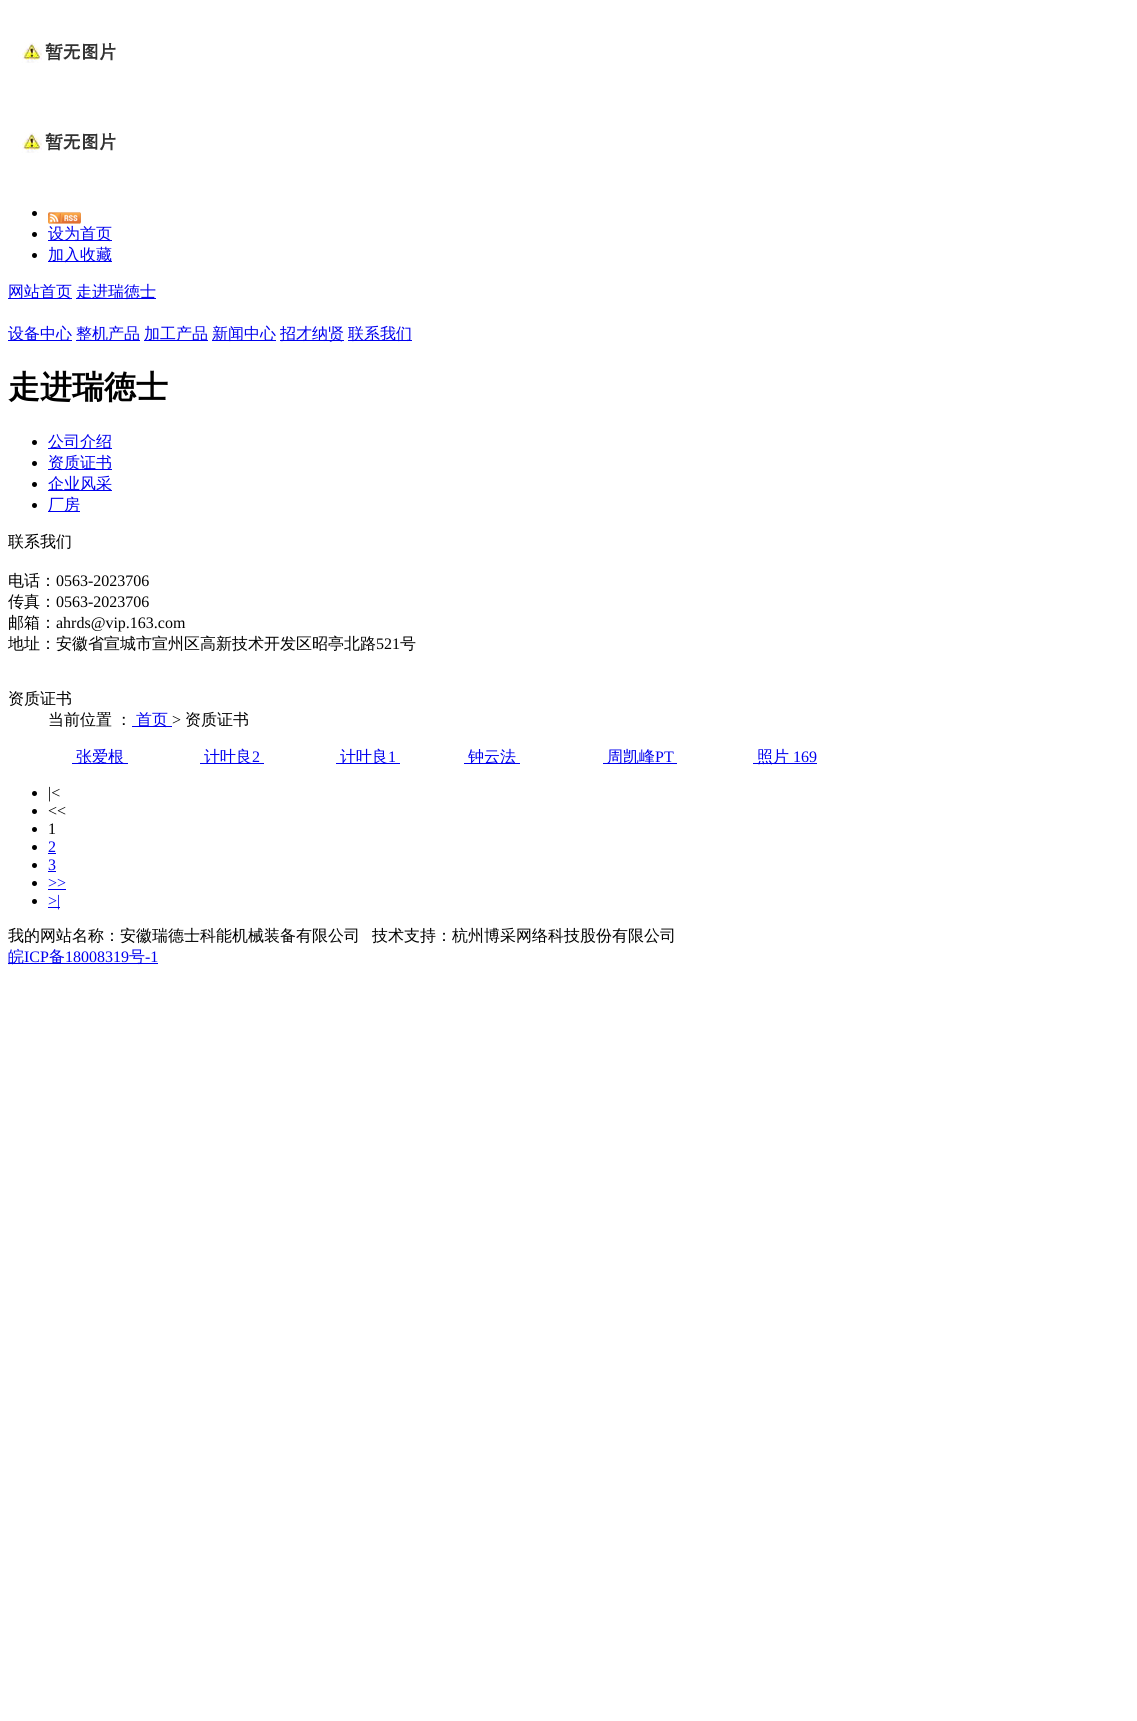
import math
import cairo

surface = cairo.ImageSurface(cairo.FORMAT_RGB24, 1137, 1721)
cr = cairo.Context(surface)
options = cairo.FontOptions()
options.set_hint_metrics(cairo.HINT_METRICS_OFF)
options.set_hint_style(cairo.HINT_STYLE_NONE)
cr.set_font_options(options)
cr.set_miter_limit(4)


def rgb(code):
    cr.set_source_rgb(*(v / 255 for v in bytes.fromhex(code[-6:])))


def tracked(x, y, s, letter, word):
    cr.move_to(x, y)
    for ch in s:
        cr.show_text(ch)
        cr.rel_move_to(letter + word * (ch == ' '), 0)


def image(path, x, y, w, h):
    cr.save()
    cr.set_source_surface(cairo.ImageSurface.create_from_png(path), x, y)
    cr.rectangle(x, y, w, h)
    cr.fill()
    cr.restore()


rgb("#ffffff")
cr.paint()
image("img/1.png", 18, 42, 98, 21)
image("img/1.png", 18, 132, 98, 21)
rgb("#000000")
cr.arc(34.5, 213.5, 2.5, 0, 2 * math.pi)
cr.fill()
image("img/2.png", 48, 212, 33, 12)
cr.arc(34.5, 234.5, 2.5, 0, 2 * math.pi)
cr.fill()
rgb("#0000ee")
cr.rectangle(48, 240, 64, 1)
cr.fill()
rgb("#000000")
cr.arc(34.5, 255.5, 2.5, 0, 2 * math.pi)
cr.fill()
for x, y, w, h, color in [
    (48, 261, 64, 1, "#0000ee"),
    (8, 298, 64, 1, "#0000ee"),
    (76, 298, 80, 1, "#0000ee"),
    (8, 340, 64, 1, "#0000ee"),
    (76, 340, 64, 1, "#0000ee"),
    (144, 340, 64, 1, "#0000ee"),
    (212, 340, 64, 1, "#0000ee"),
    (280, 340, 64, 1, "#0000ee"),
    (348, 340, 64, 1, "#0000ee"),
]:
    rgb(color)
    cr.rectangle(x, y, w, h)
    cr.fill()
rgb("#000000")
cr.arc(34.5, 442.5, 2.5, 0, 2 * math.pi)
cr.fill()
rgb("#0000ee")
cr.rectangle(48, 448, 64, 1)
cr.fill()
rgb("#000000")
cr.arc(34.5, 463.5, 2.5, 0, 2 * math.pi)
cr.fill()
rgb("#0000ee")
cr.rectangle(48, 469, 64, 1)
cr.fill()
rgb("#000000")
cr.arc(34.5, 484.5, 2.5, 0, 2 * math.pi)
cr.fill()
rgb("#0000ee")
cr.rectangle(48, 490, 64, 1)
cr.fill()
rgb("#000000")
cr.arc(34.5, 505.5, 2.5, 0, 2 * math.pi)
cr.fill()
for x, y, w, h, color in [
    (48, 511, 32, 1, "#0000ee"),
    (132, 726, 40, 1, "#0000ee"),
    (72, 763, 56, 1, "#0000ee"),
    (200, 763, 64, 1, "#0000ee"),
    (336, 763, 64, 1, "#0000ee"),
    (464, 763, 56, 1, "#0000ee"),
    (603, 763, 74, 1, "#0000ee"),
    (753, 763, 64, 1, "#0000ee"),
]:
    rgb(color)
    cr.rectangle(x, y, w, h)
    cr.fill()
rgb("#000000")
cr.arc(34.5, 793.5, 2.5, 0, 2 * math.pi)
cr.fill()
cr.arc(34.5, 811.5, 2.5, 0, 2 * math.pi)
cr.fill()
cr.arc(34.5, 829.5, 2.5, 0, 2 * math.pi)
cr.fill()
cr.arc(34.5, 847.5, 2.5, 0, 2 * math.pi)
cr.fill()
rgb("#0000ee")
cr.rectangle(48, 853, 8, 1)
cr.fill()
rgb("#000000")
cr.arc(34.5, 865.5, 2.5, 0, 2 * math.pi)
cr.fill()
rgb("#0000ee")
cr.rectangle(48, 871, 8, 1)
cr.fill()
rgb("#000000")
cr.arc(34.5, 883.5, 2.5, 0, 2 * math.pi)
cr.fill()
rgb("#0000ee")
cr.rectangle(48, 889, 18, 1)
cr.fill()
rgb("#000000")
cr.arc(34.5, 901.5, 2.5, 0, 2 * math.pi)
cr.fill()
rgb("#0000ee")
cr.rectangle(48, 907, 12, 1)
cr.fill()
cr.rectangle(8, 963, 150, 1)
cr.fill()
cr.select_font_face("WenQuanYi Zen Hei Medium")
cr.set_font_size(16)
for x, y, s in [
    (48, 239, "设为首页"),
    (48, 260, "加入收藏"),
    (8, 297, "网站首页"),
    (76, 297, "走进瑞徳士"),
    (8, 339, "设备中心"),
    (76, 339, "整机产品"),
    (144, 339, "加工产品"),
    (212, 339, "新闻中心"),
    (280, 339, "招才纳贤"),
    (348, 339, "联系我们"),
]:
    cr.move_to(x, y)
    cr.show_text(s)
cr.select_font_face("WenQuanYi Zen Hei", cairo.FONT_SLANT_NORMAL, cairo.FONT_WEIGHT_BOLD)
cr.set_font_size(32)
rgb("#000000")
cr.move_to(8, 398)
cr.show_text("走进瑞徳士")
cr.select_font_face("WenQuanYi Zen Hei Medium")
cr.set_font_size(16)
rgb("#0000ee")
for x, y, s in [
    (48, 447, "公司介绍"),
    (48, 468, "资质证书"),
    (48, 489, "企业风采"),
    (48, 510, "厂房"),
]:
    cr.move_to(x, y)
    cr.show_text(s)
rgb("#000000")
cr.move_to(8, 547)
cr.show_text("联系我们")
cr.move_to(8, 586)
cr.show_text("电话：")
cr.select_font_face("Liberation Serif")
cr.move_to(56, 586)
cr.show_text("0563-2023706")
cr.select_font_face("WenQuanYi Zen Hei Medium")
cr.move_to(8, 607)
cr.show_text("传真：")
cr.select_font_face("Liberation Serif")
cr.move_to(56, 607)
cr.show_text("0563-2023706")
cr.select_font_face("WenQuanYi Zen Hei Medium")
cr.move_to(8, 628)
cr.show_text("邮箱：")
cr.select_font_face("Liberation Serif")
cr.move_to(56, 628)
cr.show_text("ahrds@vip.163.com")
cr.select_font_face("WenQuanYi Zen Hei Medium")
cr.move_to(8, 649)
cr.show_text("地址：安徽省宣城市宣州区高新技术开发区昭亭北路")
cr.select_font_face("Liberation Serif")
cr.move_to(376, 649)
cr.show_text("521")
cr.select_font_face("WenQuanYi Zen Hei Medium")
cr.move_to(400, 649)
cr.show_text("号")
cr.move_to(8, 704)
cr.show_text("资质证书")
tracked(48, 725, "当前位置 ：", 0, -1)
rgb("#0000ee")
cr.move_to(136, 725)
cr.show_text("首页")
cr.select_font_face("Liberation Serif")
rgb("#000000")
cr.move_to(172, 725)
cr.show_text(">")
cr.select_font_face("WenQuanYi Zen Hei Medium")
cr.move_to(185, 725)
cr.show_text("资质证书")
rgb("#0000ee")
cr.move_to(76, 762)
cr.show_text("张爱根")
cr.move_to(204, 762)
cr.show_text("计叶良")
cr.select_font_face("Liberation Serif")
cr.move_to(252, 762)
cr.show_text("2")
cr.select_font_face("WenQuanYi Zen Hei Medium")
cr.move_to(340, 762)
cr.show_text("计叶良")
cr.select_font_face("Liberation Serif")
cr.move_to(388, 762)
cr.show_text("1")
cr.select_font_face("WenQuanYi Zen Hei Medium")
cr.move_to(468, 762)
cr.show_text("钟云法")
cr.move_to(607, 762)
cr.show_text("周凯峰")
cr.select_font_face("Liberation Serif")
cr.move_to(655, 762)
cr.show_text("PT")
cr.select_font_face("WenQuanYi Zen Hei Medium")
cr.move_to(757, 762)
cr.show_text("照片")
cr.select_font_face("Liberation Serif")
cr.move_to(793, 762)
cr.show_text("169")
rgb("#000000")
for x, y, s in [
    (48, 798, "|<"),
    (48, 816, "<<"),
    (48, 834, "1"),
]:
    cr.move_to(x, y)
    cr.show_text(s)
rgb("#0000ee")
for x, y, s in [
    (48, 852, "2"),
    (48, 870, "3"),
    (48, 888, ">>"),
    (48, 906, ">|"),
]:
    cr.move_to(x, y)
    cr.show_text(s)
cr.select_font_face("WenQuanYi Zen Hei Medium")
rgb("#000000")
cr.move_to(8, 941)
cr.show_text("我的网站名称：安徽瑞德士科能机械装备有限公司")
cr.move_to(372, 941)
cr.show_text("技术支持：杭州博采网络科技股份有限公司")
rgb("#0000ee")
cr.move_to(8, 962)
cr.show_text("皖")
cr.select_font_face("Liberation Serif")
cr.move_to(24, 962)
cr.show_text("ICP")
cr.select_font_face("WenQuanYi Zen Hei Medium")
cr.move_to(49, 962)
cr.show_text("备")
cr.select_font_face("Liberation Serif")
cr.move_to(65, 962)
cr.show_text("18008319")
cr.select_font_face("WenQuanYi Zen Hei Medium")
cr.move_to(129, 962)
cr.show_text("号")
cr.select_font_face("Liberation Serif")
cr.move_to(145, 962)
cr.show_text("-1")
surface.write_to_png("page.png")
